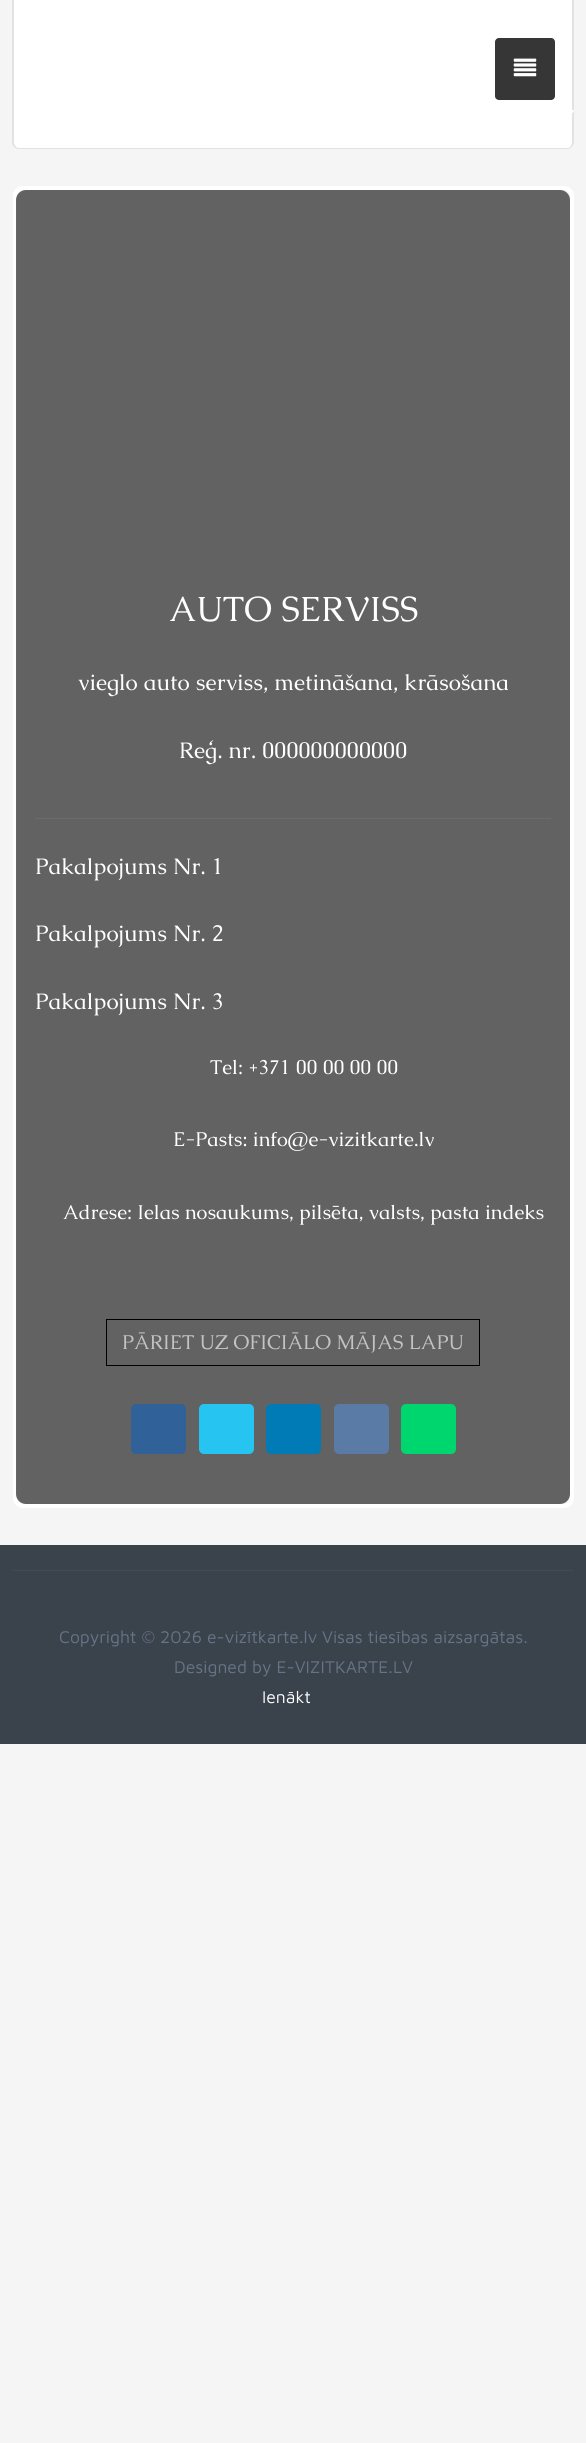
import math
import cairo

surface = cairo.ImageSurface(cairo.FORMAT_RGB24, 586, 2443)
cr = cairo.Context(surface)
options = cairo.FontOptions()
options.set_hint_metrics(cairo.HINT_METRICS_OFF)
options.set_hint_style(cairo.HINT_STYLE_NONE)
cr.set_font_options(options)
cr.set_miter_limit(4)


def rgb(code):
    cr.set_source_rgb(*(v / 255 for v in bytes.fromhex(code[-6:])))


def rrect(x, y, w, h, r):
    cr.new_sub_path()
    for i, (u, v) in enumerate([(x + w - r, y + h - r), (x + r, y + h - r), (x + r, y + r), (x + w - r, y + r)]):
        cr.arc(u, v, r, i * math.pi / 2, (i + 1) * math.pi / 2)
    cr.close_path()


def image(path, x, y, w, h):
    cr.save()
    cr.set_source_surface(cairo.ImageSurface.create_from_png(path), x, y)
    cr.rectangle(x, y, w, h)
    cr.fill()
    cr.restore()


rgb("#f5f5f5")
cr.paint()
rgb("#ffffff")
cr.new_path()
cr.move_to(13, 0)
cr.line_to(574, 0)
cr.line_to(574, 143)
cr.curve_to(574, 146.5, 571.5, 149, 568, 149)
cr.line_to(19, 149)
cr.curve_to(15.5, 149, 13, 146.5, 13, 143)
cr.close_path()
cr.fill()
rgb("#e2e2e2")
cr.set_fill_rule(cairo.FILL_RULE_EVEN_ODD)
cr.new_path()
cr.move_to(12, 0)
cr.line_to(574, 0)
cr.line_to(574, 142)
cr.curve_to(574, 146, 571, 149, 568, 149)
cr.line_to(19, 149)
cr.curve_to(15, 149, 12, 146, 12, 142)
cr.close_path()
cr.move_to(14, 0)
cr.line_to(572, 0)
cr.line_to(572, 142)
cr.curve_to(572, 145, 570, 148, 568, 148)
cr.line_to(19, 148)
cr.curve_to(16, 148, 14, 145, 14, 142)
cr.close_path()
cr.fill()
rgb("#ffffff")
cr.new_path()
cr.move_to(20, 110)
cr.line_to(574, 110)
cr.curve_to(574, 112, 572, 114, 570, 114)
cr.line_to(24, 114)
cr.curve_to(22, 114, 20, 112, 20, 110)
cr.close_path()
cr.fill()
rgb("#363636")
rrect(495, 38, 60, 62, 4)
cr.fill()
image("img/1.png", 513, 58, 24, 19)
rrect(15, 188, 557, 1318, 8)
rgb("#ffffff")
cr.set_line_width(4)
cr.stroke()
cr.set_source_rgba(0, 0, 0, 0.6)
rrect(16, 190, 554, 1314, 10)
cr.fill()
rgb("#6b6b6b")
cr.rectangle(35, 818, 516, 1)
cr.fill()
cr.rectangle(106.5, 1319.5, 373, 46)
rgb("#000000")
cr.set_line_width(1)
cr.stroke()
rgb("#306199")
rrect(131, 1404, 55, 50, 5)
cr.fill()
rgb("#26c4f1")
rrect(199, 1404, 55, 50, 5)
cr.fill()
rgb("#007bb6")
rrect(266, 1404, 55, 50, 5)
cr.fill()
rgb("#597ba5")
rrect(334, 1404, 55, 50, 5)
cr.fill()
rgb("#00d66e")
rrect(401, 1404, 55, 50, 5)
cr.fill()
rgb("#3a424c")
cr.rectangle(0, 1545, 586, 199)
cr.fill()
rgb("#414b56")
cr.rectangle(13, 1570, 561, 1)
cr.fill()
cr.select_font_face("Caudex")
cr.set_font_size(35)
rgb("#ffffff")
cr.move_to(169, 621)
cr.show_text("AUTO SERVISS")
cr.set_font_size(22.5)
for x, y, s in [
    (78, 690, "vieglo auto serviss, metināšana, krāsošana"),
    (179, 758, "Reģ. nr. 000000000000"),
    (35, 874, "Pakalpojums Nr. 1"),
    (35, 941, "Pakalpojums Nr. 2"),
    (35, 1009, "Pakalpojums Nr. 3"),
]:
    cr.move_to(x, y)
    cr.show_text(s)
cr.set_font_size(20)
for x, y, s in [
    (210, 1074, "Tel: +371 00 00 00 00"),
    (173, 1146, "E-Pasts: info@e-vizitkarte.lv"),
    (63, 1219, "Adrese: Ielas nosaukums, pilsēta, valsts, pasta indeks"),
]:
    cr.move_to(x, y)
    cr.show_text(s)
rgb("#c3c3c3")
cr.move_to(122, 1349)
cr.show_text("PĀRIET UZ OFICIĀLO MĀJAS LAPU")
cr.select_font_face("Maven Pro")
cr.set_font_size(17.5)
rgb("#667486")
for x, y, s in [
    (59, 1643, "Copyright ©"),
    (160, 1643, "2026 e-vizītkarte.lv"),
    (322, 1643, "Visas tiesības aizsargātas."),
    (174, 1673, "Designed by E-VIZITKARTE.LV"),
]:
    cr.move_to(x, y)
    cr.show_text(s)
rgb("#ffffff")
cr.move_to(262, 1703)
cr.show_text("Ienākt")
surface.write_to_png("page.png")
